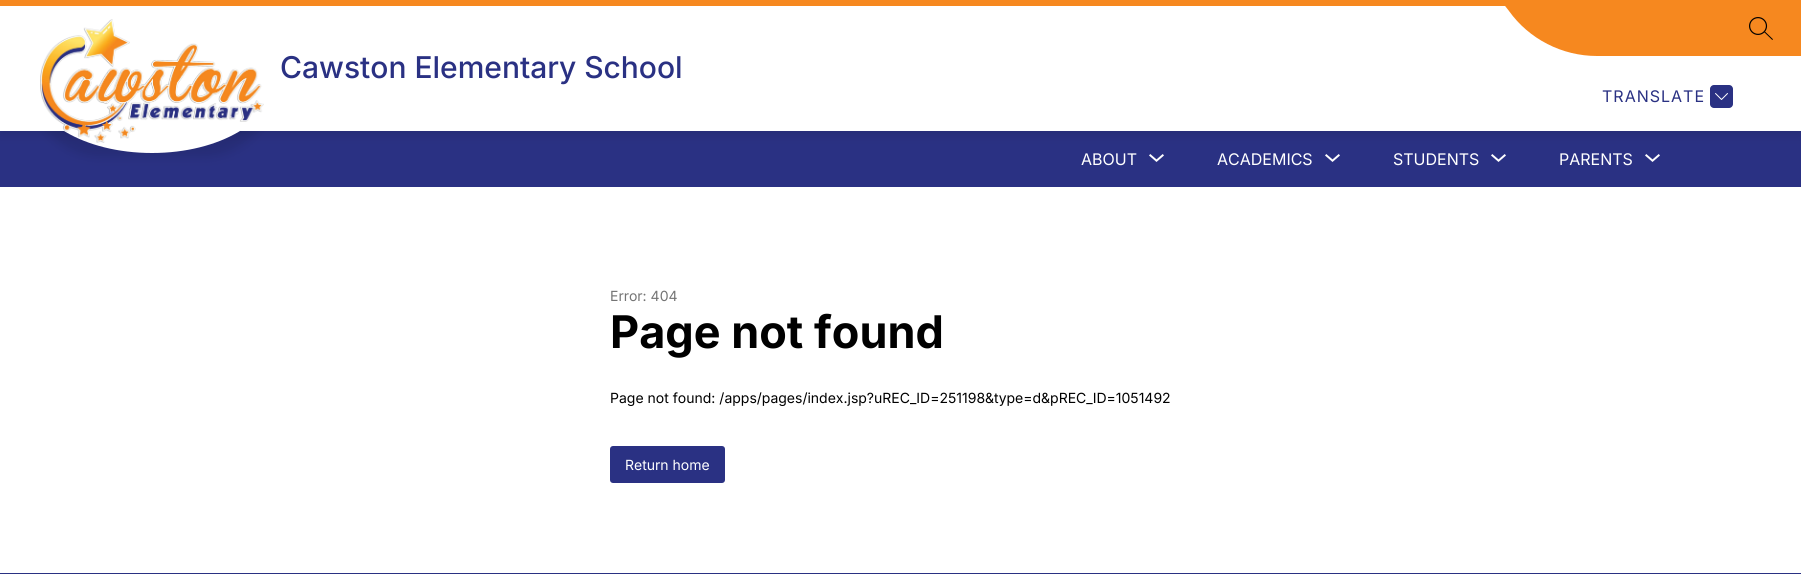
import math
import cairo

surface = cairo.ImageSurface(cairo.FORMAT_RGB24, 1801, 574)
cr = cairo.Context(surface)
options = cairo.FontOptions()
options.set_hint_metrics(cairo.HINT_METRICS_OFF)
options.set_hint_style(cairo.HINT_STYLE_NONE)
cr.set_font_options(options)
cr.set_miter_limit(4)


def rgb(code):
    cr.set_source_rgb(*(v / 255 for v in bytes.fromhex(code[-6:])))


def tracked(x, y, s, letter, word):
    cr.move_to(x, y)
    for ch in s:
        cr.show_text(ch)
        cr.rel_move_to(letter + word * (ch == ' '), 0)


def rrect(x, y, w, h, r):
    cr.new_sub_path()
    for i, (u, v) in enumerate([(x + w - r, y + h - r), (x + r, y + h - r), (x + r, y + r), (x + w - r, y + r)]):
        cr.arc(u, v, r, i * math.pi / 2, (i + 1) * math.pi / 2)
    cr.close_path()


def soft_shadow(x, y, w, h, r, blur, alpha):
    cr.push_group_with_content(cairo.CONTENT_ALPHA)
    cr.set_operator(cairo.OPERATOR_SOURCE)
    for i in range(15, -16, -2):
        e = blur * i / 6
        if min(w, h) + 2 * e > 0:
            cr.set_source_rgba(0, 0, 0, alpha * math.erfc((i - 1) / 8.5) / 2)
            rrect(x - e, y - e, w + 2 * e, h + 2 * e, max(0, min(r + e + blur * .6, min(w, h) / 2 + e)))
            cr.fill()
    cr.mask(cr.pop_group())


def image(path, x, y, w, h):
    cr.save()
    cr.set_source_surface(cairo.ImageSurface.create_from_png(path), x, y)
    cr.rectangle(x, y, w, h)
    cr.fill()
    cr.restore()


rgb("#ffffff")
cr.paint()
rgb("#2a3183")
cr.rectangle(0, 131, 1801, 56)
cr.fill()
rgb("#000000")
soft_shadow(0, 4, 1801, 131, 0, 5, 0.1)
soft_shadow(30, 13, 244, 144, 72, 5, 0.1)
rgb("#ffffff")
cr.new_path()
cr.move_to(152, 9)
cr.curve_to(219.5, 9, 274, 41, 274, 81)
cr.curve_to(274, 121, 219.5, 153, 152, 153)
cr.curve_to(84.5, 153, 30, 121, 30, 81)
cr.curve_to(30, 41, 84.5, 9, 152, 9)
cr.close_path()
cr.fill()
cr.rectangle(0, 6, 1801, 125)
cr.fill()
rgb("#f6881f")
cr.rectangle(0, 0, 1506, 6)
cr.fill()
image("img/1.png", 40, 19, 224, 124)
cr.rectangle(1599, 0, 202, 56)
cr.fill()
cr.new_path()
cr.move_to(1597, 56)
cr.line_to(1599, 56)
cr.line_to(1599, 0)
cr.line_to(1503, 0)
cr.curve_to(1502, 0, 1502, 1, 1502, 2)
cr.line_to(1509, 11)
cr.curve_to(1529, 39, 1562, 56, 1597, 56)
cr.close_path()
cr.fill()
image("img/2.png", 1749, 17, 24, 23)
image("img/3.png", 1710, 85, 23, 23)
image("img/4.png", 1149, 154, 15, 8)
image("img/4.png", 1325, 154, 15, 8)
image("img/4.png", 1491, 154, 15, 8)
image("img/4.png", 1645, 154, 15, 8)
rgb("#2a3183")
rrect(610, 446, 115, 37, 3)
cr.fill()
cr.rectangle(0, 573, 1801, 1)
cr.fill()
cr.select_font_face("Inter Medium")
cr.set_font_size(30)
cr.move_to(280, 78)
cr.show_text("Cawston Elementary School")
cr.select_font_face("Inter")
cr.set_font_size(16)
tracked(1602, 102, "TRANSLATE", 1, 0)
rgb("#ffffff")
for x, y, s in [
    (1081, 165, "ABOUT"),
    (1217, 165, "ACADEMICS"),
    (1393, 165, "STUDENTS"),
    (1559, 165, "PARENTS"),
]:
    cr.move_to(x, y)
    cr.show_text(s)
cr.set_font_size(14)
rgb("#747474")
cr.move_to(610, 301)
cr.show_text("Error: 404")
cr.select_font_face("Inter", cairo.FONT_SLANT_NORMAL, cairo.FONT_WEIGHT_BOLD)
cr.set_font_size(45)
rgb("#000000")
cr.move_to(610, 348)
cr.show_text("Page not found")
cr.select_font_face("Inter")
cr.set_font_size(14)
cr.move_to(610, 403)
cr.show_text("Page not found: /apps/pages/index.jsp?uREC_ID=251198&type=d&pREC_ID=1051492")
rgb("#ffffff")
cr.move_to(625, 470)
cr.show_text("Return home")
surface.write_to_png("page.png")
